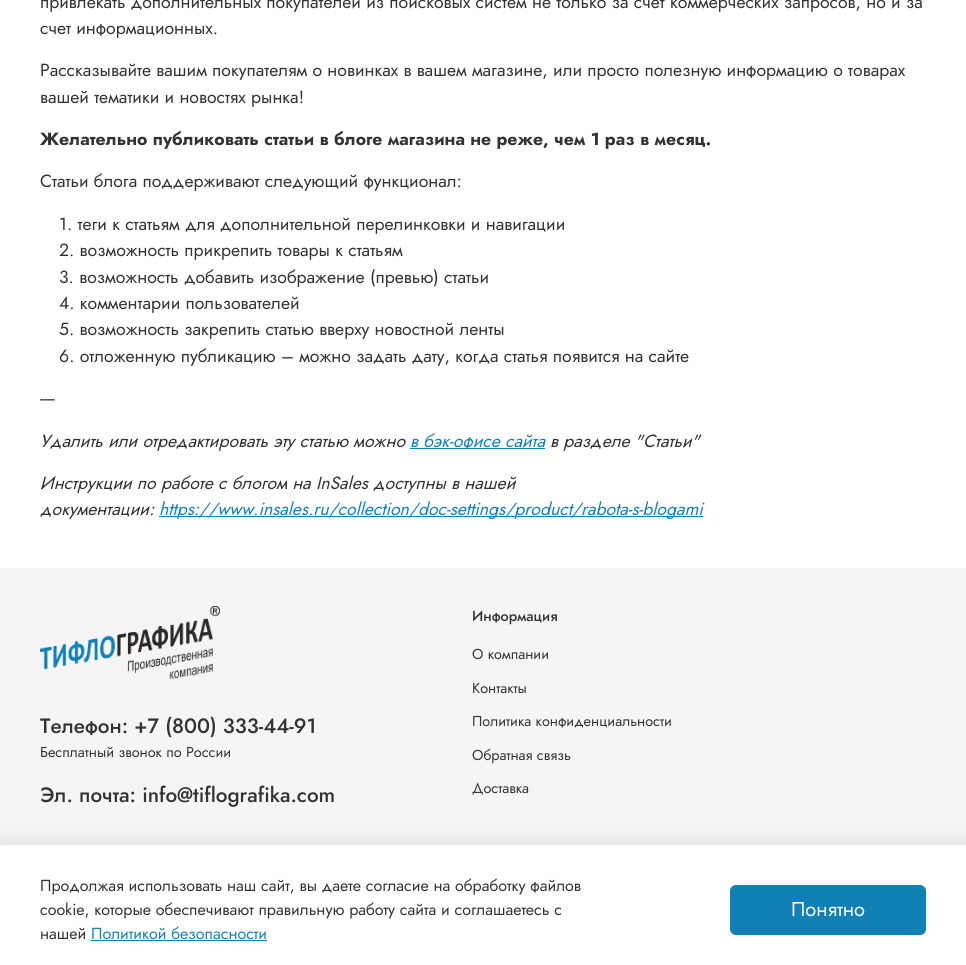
import math
import cairo

surface = cairo.ImageSurface(cairo.FORMAT_RGB24, 966, 965)
cr = cairo.Context(surface)
options = cairo.FontOptions()
options.set_hint_metrics(cairo.HINT_METRICS_OFF)
options.set_hint_style(cairo.HINT_STYLE_NONE)
cr.set_font_options(options)
cr.set_miter_limit(4)


def rgb(code):
    cr.set_source_rgb(*(v / 255 for v in bytes.fromhex(code[-6:])))


def rrect(x, y, w, h, r):
    cr.new_sub_path()
    for i, (u, v) in enumerate([(x + w - r, y + h - r), (x + r, y + h - r), (x + r, y + r), (x + w - r, y + r)]):
        cr.arc(u, v, r, i * math.pi / 2, (i + 1) * math.pi / 2)
    cr.close_path()


def soft_shadow(x, y, w, h, r, blur, alpha):
    cr.push_group_with_content(cairo.CONTENT_ALPHA)
    cr.set_operator(cairo.OPERATOR_SOURCE)
    for i in range(15, -16, -2):
        e = blur * i / 6
        if min(w, h) + 2 * e > 0:
            cr.set_source_rgba(0, 0, 0, alpha * math.erfc((i - 1) / 8.5) / 2)
            rrect(x - e, y - e, w + 2 * e, h + 2 * e, max(0, min(r + e + blur * .6, min(w, h) / 2 + e)))
            cr.fill()
    cr.mask(cr.pop_group())


def image(path, x, y, w, h):
    cr.save()
    cr.set_source_surface(cairo.ImageSurface.create_from_png(path), x, y)
    cr.rectangle(x, y, w, h)
    cr.fill()
    cr.restore()


rgb("#ffffff")
cr.paint()
for x, y, w, h, color in [
    (410, 448, 135, 1, "#1182b8"),
    (159, 516, 544, 1, "#1182b8"),
    (0, 568, 966, 277, "#f5f5f6"),
]:
    rgb(color)
    cr.rectangle(x, y, w, h)
    cr.fill()
image("img/1.png", 40, 606, 180, 73)
rgb("#000000")
soft_shadow(-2, 842, 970, 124, 0, 11.5, 0.09)
rgb("#ffffff")
cr.rectangle(0, 845, 966, 120)
cr.fill()
rgb("#1182b8")
cr.rectangle(91, 940, 176, 1)
cr.fill()
rgb("#1180b4")
rrect(730, 885, 196, 50, 6)
cr.fill()
cr.select_font_face("Jost")
cr.set_font_size(17.6)
rgb("#333333")
for x, y, s in [
    (40, 8, "привлекать дополнительных покупателей из поисковых систем не только за счет коммерческих запросов, но и за"),
    (40, 34, "счет информационных."),
    (40, 76, "Рассказывайте вашим покупателям о новинках в вашем магазине, или просто полезную информацию о товарах"),
    (40, 103, "вашей тематики и новостях рынка!"),
]:
    cr.move_to(x, y)
    cr.show_text(s)
cr.select_font_face("Jost", cairo.FONT_SLANT_NORMAL, cairo.FONT_WEIGHT_BOLD)
cr.move_to(40, 145)
cr.show_text("Желательно публиковать статьи в блоге магазина не реже, чем 1 раз в месяц.")
cr.select_font_face("Jost")
for x, y, s in [
    (40, 187, "Статьи блога поддерживают следующий функционал:"),
    (59, 230, "1. теги к статьям для дополнительной перелинковки и навигации"),
    (59, 256, "2. возможность прикрепить товары к статьям"),
    (59, 283, "3. возможность добавить изображение (превью) статьи"),
    (59, 309, "4. комментарии пользователей"),
    (59, 335, "5. возможность закрепить статью вверху новостной ленты"),
    (59, 362, "6. отложенную публикацию – можно задать дату, когда статья появится на сайте"),
    (40, 404, "----"),
]:
    cr.move_to(x, y)
    cr.show_text(s)
cr.select_font_face("Jost", cairo.FONT_SLANT_ITALIC)
cr.move_to(40, 447)
cr.show_text("Удалить или отредактировать эту статью можно")
rgb("#1182b8")
cr.move_to(410, 447)
cr.show_text("в бэк-офисе сайта")
rgb("#333333")
for x, y, s in [
    (550, 447, "в разделе \"Статьи\""),
    (40, 489, "Инструкции по работе с блогом на InSales доступны в нашей"),
    (40, 515, "документации:"),
]:
    cr.move_to(x, y)
    cr.show_text(s)
rgb("#1182b8")
cr.move_to(159, 515)
cr.show_text("https://www.insales.ru/collection/doc-settings/product/rabota-s-blogami")
cr.select_font_face("Jost Medium")
cr.set_font_size(20.75)
rgb("#333333")
cr.move_to(40, 733)
cr.show_text("Телефон: +7 (800) 333-44-91")
cr.select_font_face("Jost")
cr.set_font_size(14.4)
cr.move_to(40, 757)
cr.show_text("Бесплатный звонок по России")
cr.select_font_face("Jost Medium")
cr.set_font_size(20.75)
cr.move_to(40, 802)
cr.show_text("Эл. почта: info@tiflografika.com")
cr.set_font_size(14.4)
cr.move_to(472, 621)
cr.show_text("Информация")
cr.select_font_face("Jost")
for x, y, s in [
    (472, 659, "О компании"),
    (472, 693, "Контакты"),
    (472, 726, "Политика конфиденциальности"),
    (472, 760, "Обратная связь"),
    (472, 793, "Доставка"),
]:
    cr.move_to(x, y)
    cr.show_text(s)
cr.set_font_size(16)
for x, y, s in [
    (40, 891, "Продолжая использовать наш сайт, вы даете согласие на обработку файлов"),
    (40, 915, "cookie, которые обеспечивают правильную работу сайта и соглашаетесь с"),
    (40, 939, "нашей"),
]:
    cr.move_to(x, y)
    cr.show_text(s)
rgb("#1182b8")
cr.move_to(91, 939)
cr.show_text("Политикой безопасности")
cr.set_font_size(20)
rgb("#ffffff")
cr.move_to(791, 916)
cr.show_text("Понятно")
surface.write_to_png("page.png")
